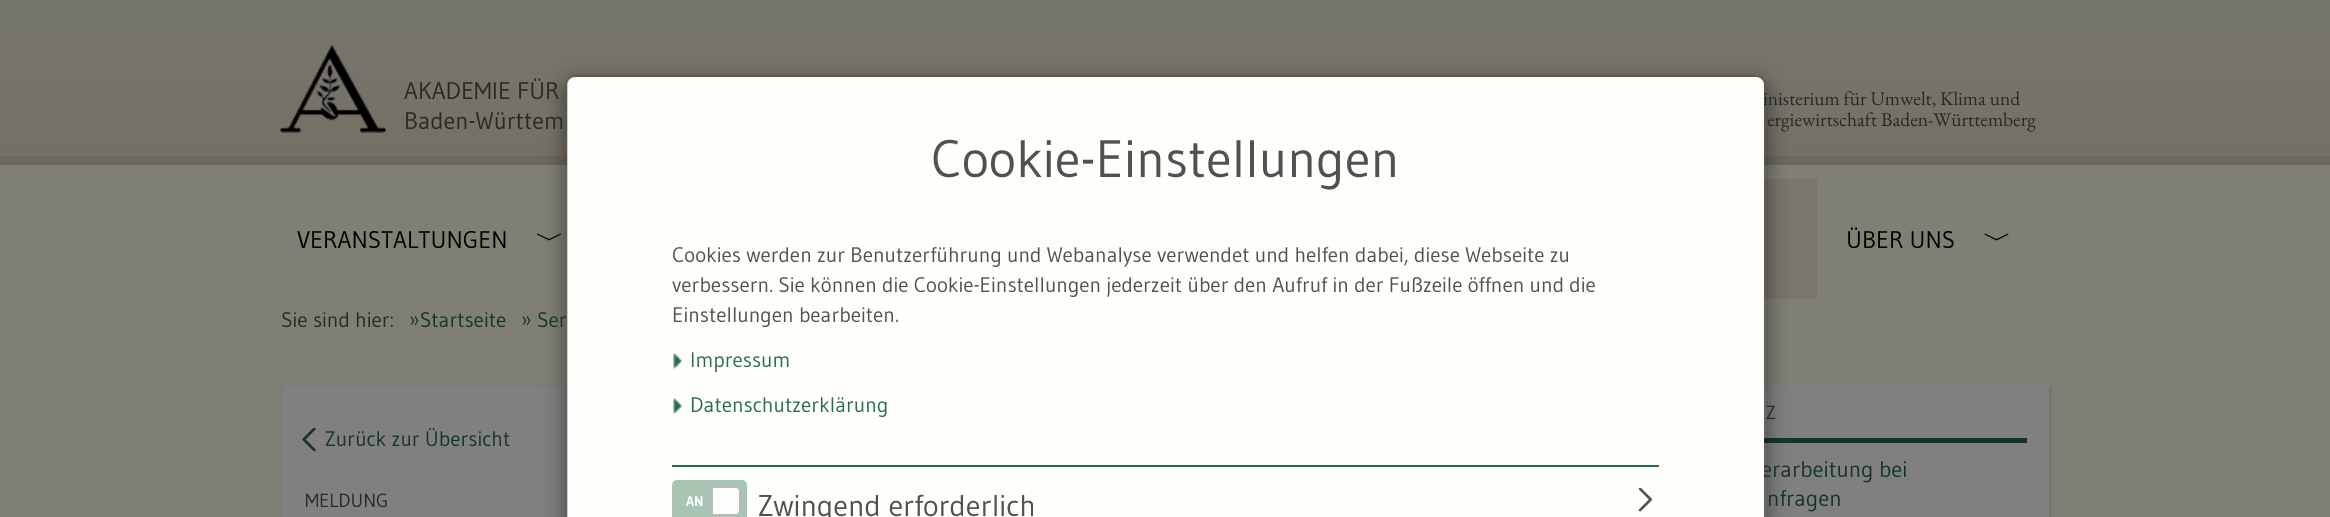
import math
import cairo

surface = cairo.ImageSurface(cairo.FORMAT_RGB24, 2330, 517)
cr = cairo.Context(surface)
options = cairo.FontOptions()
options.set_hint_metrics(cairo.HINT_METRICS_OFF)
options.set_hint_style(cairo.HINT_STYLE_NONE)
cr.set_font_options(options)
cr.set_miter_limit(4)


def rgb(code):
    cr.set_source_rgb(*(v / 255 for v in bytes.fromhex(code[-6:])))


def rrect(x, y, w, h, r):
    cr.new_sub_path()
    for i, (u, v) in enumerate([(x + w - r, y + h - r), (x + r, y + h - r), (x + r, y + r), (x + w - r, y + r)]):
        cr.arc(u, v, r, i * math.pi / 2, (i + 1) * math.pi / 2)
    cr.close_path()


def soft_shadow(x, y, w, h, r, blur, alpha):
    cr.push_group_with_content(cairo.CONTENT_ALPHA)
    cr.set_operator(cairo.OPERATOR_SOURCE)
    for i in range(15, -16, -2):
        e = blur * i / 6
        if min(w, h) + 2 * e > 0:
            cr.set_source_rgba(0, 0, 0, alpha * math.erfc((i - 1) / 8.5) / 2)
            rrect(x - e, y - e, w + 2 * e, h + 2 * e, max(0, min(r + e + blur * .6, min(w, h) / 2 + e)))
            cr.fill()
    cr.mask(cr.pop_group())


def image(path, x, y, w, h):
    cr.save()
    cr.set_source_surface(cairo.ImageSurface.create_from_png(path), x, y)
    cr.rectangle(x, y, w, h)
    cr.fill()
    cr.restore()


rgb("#807f75")
cr.paint()
gradient = cairo.LinearGradient(1166, 0, 1166, 156)
gradient.add_color_stop_rgba(0, 0.463, 0.463, 0.416, 1)
gradient.add_color_stop_rgba(1, 0.459, 0.439, 0.4, 1)
cr.set_source(gradient)
cr.rectangle(0, 0, 2330, 156)
cr.fill()
rgb("#6d685d")
cr.rectangle(0, 156, 2330, 9)
cr.fill()
image("img/1.png", 280, 44, 106, 89)
rgb("#000000")
cr.new_path()
cr.move_to(549, 240.5)
cr.line_to(537, 234.5)
cr.line_to(537.5, 233.5)
cr.line_to(549, 239)
cr.line_to(560.5, 233.5)
cr.line_to(561, 234.5)
cr.close_path()
cr.fill()
rgb("#79766c")
cr.rectangle(1764, 179, 53, 120)
cr.fill()
rgb("#000000")
cr.new_path()
cr.move_to(1996.5, 240.5)
cr.line_to(1984.5, 234.5)
cr.line_to(1985, 233.5)
cr.line_to(1996.5, 239)
cr.line_to(2008, 233.5)
cr.line_to(2008.5, 234.5)
cr.close_path()
cr.fill()
rgb("#4f4b4a")
soft_shadow(282, 387, 1320, 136, 0, 2, 0.3)
rgb("#808080")
cr.rectangle(283, 386, 284, 131)
cr.fill()
rgb("#807f75")
cr.rectangle(281, 386, 2, 131)
cr.fill()
image("img/2.png", 302, 428, 14, 24)
rgb("#808080")
cr.rectangle(1764, 386, 285, 131)
cr.fill()
cr.save()
cr.set_fill_rule(cairo.FILL_RULE_EVEN_ODD)
cr.new_path()
cr.move_to(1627, 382)
cr.line_to(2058, 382)
cr.line_to(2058, 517)
cr.line_to(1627, 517)
cr.close_path()
cr.move_to(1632, 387)
cr.line_to(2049, 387)
cr.line_to(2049, 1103)
cr.line_to(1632, 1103)
cr.close_path()
cr.clip()
rgb("#4f4b4a")
soft_shadow(1634, 389, 417, 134, 0, 2, 0.3)
cr.restore()
rgb("#143725")
cr.rectangle(1764, 438, 263, 5)
cr.fill()
cr.save()
cr.set_fill_rule(cairo.FILL_RULE_EVEN_ODD)
cr.new_path()
cr.move_to(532, 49)
cr.line_to(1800, 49)
cr.line_to(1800, 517)
cr.line_to(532, 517)
cr.close_path()
cr.move_to(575, 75)
cr.line_to(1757, 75)
cr.curve_to(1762, 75, 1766, 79, 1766, 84)
cr.line_to(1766, 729)
cr.curve_to(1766, 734, 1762, 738, 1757, 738)
cr.line_to(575, 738)
cr.curve_to(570, 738, 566, 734, 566, 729)
cr.line_to(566, 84)
cr.curve_to(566, 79, 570, 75, 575, 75)
cr.close_path()
cr.clip()
rgb("#000000")
soft_shadow(566, 83, 1200, 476, 9, 11, 0.5)
cr.restore()
cr.select_font_face("Gudea")
cr.set_font_size(24)
rgb("#292929")
cr.move_to(404, 99)
cr.show_text("AKADEMIE FÜR")
cr.move_to(404, 129)
cr.show_text("Baden-Württem")
cr.select_font_face("EB Garamond")
cr.set_font_size(19.5)
cr.move_to(1763, 105)
cr.show_text("inisterium für Umwelt, Klima und")
cr.move_to(1767, 126)
cr.show_text("ergiewirtschaft Baden-Württemberg")
cr.select_font_face("Gudea")
cr.set_font_size(24)
rgb("#000000")
cr.move_to(297, 248)
cr.show_text("VERANSTALTUNGEN")
cr.move_to(1846, 248)
cr.show_text("ÜBER UNS")
cr.set_font_size(21)
rgb("#292929")
cr.move_to(281, 327)
cr.show_text("Sie sind hier:")
rgb("#143725")
for x, y, s in [
    (409, 327, "»Startseite"),
    (521, 327, "» Ser"),
    (325, 446, "Zurück zur Übersicht"),
]:
    cr.move_to(x, y)
    cr.show_text(s)
cr.set_font_size(19)
rgb("#292929")
cr.move_to(305, 507)
cr.show_text("MELDUNG")
cr.move_to(1766, 419)
cr.show_text("Z")
cr.set_font_size(22.5)
rgb("#143725")
cr.move_to(1761, 477)
cr.show_text("erarbeitung bei")
cr.move_to(1767, 506)
cr.show_text("nfragen")
rgb("#fefffb")
cr.new_path()
cr.move_to(575, 77)
cr.line_to(1756, 77)
cr.curve_to(1760.5, 77, 1764, 80.5, 1764, 85)
cr.line_to(1764, 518)
cr.line_to(567, 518)
cr.line_to(567, 85)
cr.curve_to(567, 80.5, 570.5, 77, 575, 77)
cr.close_path()
cr.fill()
rrect(567, 76, 1198, 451, 8)
cr.set_source_rgba(0, 0, 0, 0.2)
cr.stroke()
cr.set_font_size(52.5)
rgb("#515151")
cr.move_to(931, 177)
cr.show_text("Cookie-Einstellungen")
cr.set_font_size(21)
for x, y, s in [
    (672, 262, "Cookies werden zur Benutzerführung und Webanalyse verwendet und helfen dabei, diese Webseite zu"),
    (672, 292, "verbessern. Sie können die Cookie-Einstellungen jederzeit über den Aufruf in der Fußzeile öffnen und die"),
    (672, 322, "Einstellungen bearbeiten."),
]:
    cr.move_to(x, y)
    cr.show_text(s)
image("img/3.png", 673, 352, 10, 18)
rgb("#286d4a")
cr.move_to(690, 367)
cr.show_text("Impressum")
image("img/3.png", 673, 397, 10, 18)
cr.move_to(690, 412)
cr.show_text("Datenschutzerklärung")
cr.rectangle(672, 465, 987, 2)
cr.fill()
rgb("#a8c5b4")
rrect(673.5, 481.5, 72, 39, 3.5)
cr.fill_preserve()
cr.set_line_width(3)
cr.stroke()
cr.select_font_face("Gudea", cairo.FONT_SLANT_NORMAL, cairo.FONT_WEIGHT_BOLD)
cr.set_font_size(14)
rgb("#fefffd")
cr.move_to(686, 506)
cr.show_text("AN")
cr.new_path()
cr.move_to(712, 487)
cr.line_to(736, 487)
cr.curve_to(738, 487, 740, 489, 740, 491)
cr.line_to(740, 511)
cr.curve_to(740, 513, 738, 515, 736, 515)
cr.line_to(712, 515)
cr.close_path()
cr.fill_preserve()
rgb("#b9b9b7")
cr.set_line_width(2)
cr.stroke()
cr.select_font_face("Gudea")
cr.set_font_size(30)
rgb("#515151")
cr.move_to(758, 516)
cr.show_text("Zwingend erforderlich")
image("img/4.png", 1638, 488, 15, 24)
surface.write_to_png("page.png")
